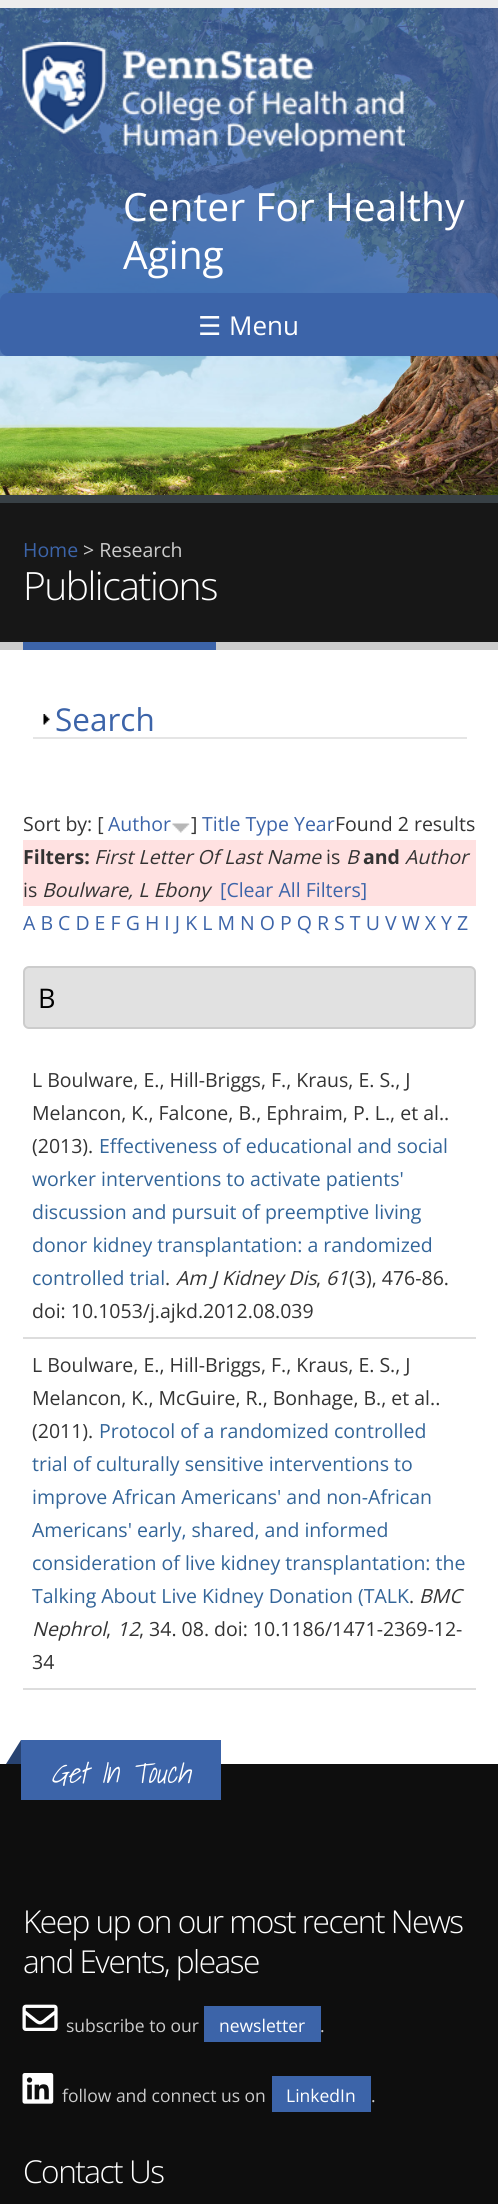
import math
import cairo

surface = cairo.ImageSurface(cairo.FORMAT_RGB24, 498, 2204)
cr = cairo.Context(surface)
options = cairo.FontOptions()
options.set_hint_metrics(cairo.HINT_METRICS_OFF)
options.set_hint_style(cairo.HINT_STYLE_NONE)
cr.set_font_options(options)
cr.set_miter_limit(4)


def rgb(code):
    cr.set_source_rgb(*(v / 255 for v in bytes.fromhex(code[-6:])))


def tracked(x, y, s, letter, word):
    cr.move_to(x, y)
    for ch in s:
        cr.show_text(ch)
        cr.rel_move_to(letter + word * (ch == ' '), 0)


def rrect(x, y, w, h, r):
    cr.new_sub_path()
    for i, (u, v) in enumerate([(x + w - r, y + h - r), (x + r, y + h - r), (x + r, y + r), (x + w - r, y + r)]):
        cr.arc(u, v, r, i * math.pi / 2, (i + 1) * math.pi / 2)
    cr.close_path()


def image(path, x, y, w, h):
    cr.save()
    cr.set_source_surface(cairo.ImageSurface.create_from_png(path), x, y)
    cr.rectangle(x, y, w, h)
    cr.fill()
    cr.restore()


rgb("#ffffff")
cr.paint()
image("img/1.png", 0, 8, 498, 487)
cr.set_source_rgba(0.235, 0.392, 0.663, 0.8)
cr.rectangle(0, 8, 498, 348)
cr.fill()
rgb("#ededed")
cr.rectangle(0, 0, 498, 8)
cr.fill()
image("img/2.png", 22, 42, 383, 110)
rgb("#3c64a9")
rrect(0, 293, 498, 63, 8)
cr.fill()
for x, y, w, h, color in [
    (0, 503, 498, 139, "#171717"),
    (0, 495, 498, 8, "#384045"),
    (0, 642, 498, 8, "#cccccc"),
    (23, 642, 193, 8, "#3c64a9"),
    (33, 737, 434, 2, "#e5e5e5"),
]:
    rgb(color)
    cr.rectangle(x, y, w, h)
    cr.fill()
image("img/3.png", 43, 714, 7, 11)
image("img/4.png", 172, 823, 18, 10)
rgb("#ffe1e1")
cr.rectangle(23, 840, 453, 66)
cr.fill()
rgb("#e1e1e1")
rrect(24, 967, 451, 61, 5)
cr.fill_preserve()
rgb("#cccccc")
cr.stroke()
for x, y, w, h, color in [
    (23, 1337, 453, 2, "#dddddd"),
    (23, 1688, 453, 2, "#dddddd"),
    (0, 1764, 498, 440, "#0e0e0e"),
    (21, 1740, 200, 60, "#3c64a9"),
]:
    rgb(color)
    cr.rectangle(x, y, w, h)
    cr.fill()
rgb("#284371")
cr.new_path()
cr.move_to(21, 1740)
cr.line_to(21, 1764)
cr.line_to(6, 1764)
cr.close_path()
cr.fill()
image("img/5.png", 22, 2004, 36, 27)
rgb("#3c64a9")
cr.rectangle(204, 2006, 117, 36)
cr.fill()
image("img/6.png", 22, 2073, 32, 31)
cr.rectangle(272, 2076, 99, 36)
cr.fill()
cr.select_font_face("Open Sans")
cr.set_font_size(39)
rgb("#ffffff")
cr.move_to(123, 221)
cr.show_text("Center For Healthy")
cr.move_to(123, 269)
cr.show_text("Aging")
cr.select_font_face("DejaVu Sans")
cr.set_font_size(26)
cr.move_to(198, 335)
cr.show_text("☰")
cr.select_font_face("Open Sans")
cr.move_to(229, 335)
cr.show_text("Menu")
cr.set_font_size(19.5)
rgb("#3c64a9")
cr.move_to(23, 557)
cr.show_text("Home")
rgb("#cccccc")
cr.move_to(83, 557)
cr.show_text("> Research")
cr.select_font_face("Open Sans Light")
cr.set_font_size(39)
rgb("#ffffff")
tracked(23, 600, "Publications", -1.5, 0)
cr.select_font_face("Open Sans")
cr.set_font_size(31.5)
rgb("#3c64a9")
cr.move_to(55, 731)
cr.show_text("Search")
cr.set_font_size(19.5)
rgb("#333333")
cr.move_to(23, 831)
cr.show_text("Sort by: [")
rgb("#3c64a9")
cr.move_to(108, 831)
cr.show_text("Author")
rgb("#333333")
cr.move_to(191, 831)
cr.show_text("]")
rgb("#3c64a9")
cr.move_to(202, 831)
cr.show_text("Title Type Year")
rgb("#333333")
cr.move_to(335, 831)
cr.show_text("Found 2 results")
cr.select_font_face("Open Sans", cairo.FONT_SLANT_NORMAL, cairo.FONT_WEIGHT_BOLD)
cr.move_to(23, 864)
cr.show_text("Filters:")
cr.select_font_face("Open Sans", cairo.FONT_SLANT_ITALIC)
cr.move_to(94, 864)
cr.show_text("First Letter Of Last Name")
cr.select_font_face("Open Sans")
cr.move_to(326, 864)
cr.show_text("is")
cr.select_font_face("Open Sans", cairo.FONT_SLANT_ITALIC)
cr.move_to(346, 864)
cr.show_text("B")
cr.select_font_face("Open Sans", cairo.FONT_SLANT_NORMAL, cairo.FONT_WEIGHT_BOLD)
cr.move_to(363, 864)
cr.show_text("and")
cr.select_font_face("Open Sans", cairo.FONT_SLANT_ITALIC)
cr.move_to(405, 864)
cr.show_text("Author")
cr.select_font_face("Open Sans")
cr.move_to(23, 897)
cr.show_text("is")
cr.select_font_face("Open Sans", cairo.FONT_SLANT_ITALIC)
cr.move_to(42, 897)
cr.show_text("Boulware, L Ebony")
cr.select_font_face("Open Sans")
rgb("#3c64a9")
cr.move_to(220, 897)
cr.show_text("[Clear All Filters]")
cr.move_to(23, 930)
cr.show_text("A B C D E F G H I J K L M N O P Q R S T U V W X Y Z")
cr.set_font_size(27)
rgb("#000000")
cr.move_to(38, 1008)
cr.show_text("B")
cr.set_font_size(19.5)
rgb("#333333")
for x, y, s in [
    (32, 1087, "L Boulware, E., Hill-Briggs, F., Kraus, E. S., J"),
    (32, 1120, "Melancon, K., Falcone, B., Ephraim, P. L., et al.."),
    (32, 1153, "(2013)."),
]:
    cr.move_to(x, y)
    cr.show_text(s)
rgb("#336599")
for x, y, s in [
    (99, 1153, "Effectiveness of educational and social"),
    (32, 1186, "worker interventions to activate patients'"),
    (32, 1219, "discussion and pursuit of preemptive living"),
    (32, 1252, "donor kidney transplantation: a randomized"),
    (32, 1285, "controlled trial"),
]:
    cr.move_to(x, y)
    cr.show_text(s)
rgb("#333333")
cr.move_to(165, 1285)
cr.show_text(".")
cr.select_font_face("Open Sans", cairo.FONT_SLANT_ITALIC)
cr.move_to(176, 1285)
cr.show_text("Am J Kidney Dis")
cr.select_font_face("Open Sans")
cr.move_to(316, 1285)
cr.show_text(",")
cr.select_font_face("Open Sans", cairo.FONT_SLANT_ITALIC)
cr.move_to(326, 1285)
cr.show_text("61")
cr.select_font_face("Open Sans")
for x, y, s in [
    (349, 1285, "(3), 476-86."),
    (32, 1318, "doi: 10.1053/j.ajkd.2012.08.039"),
    (32, 1372, "L Boulware, E., Hill-Briggs, F., Kraus, E. S., J"),
    (32, 1405, "Melancon, K., McGuire, R., Bonhage, B., et al.."),
    (32, 1438, "(2011)."),
]:
    cr.move_to(x, y)
    cr.show_text(s)
rgb("#336599")
for x, y, s in [
    (99, 1438, "Protocol of a randomized controlled"),
    (32, 1471, "trial of culturally sensitive interventions to"),
    (32, 1504, "improve African Americans' and non-African"),
    (32, 1537, "Americans' early, shared, and informed"),
    (32, 1570, "consideration of live kidney transplantation: the"),
    (32, 1603, "Talking About Live Kidney Donation (TALK"),
]:
    cr.move_to(x, y)
    cr.show_text(s)
rgb("#333333")
cr.move_to(409, 1603)
cr.show_text(".")
cr.select_font_face("Open Sans", cairo.FONT_SLANT_ITALIC)
for x, y, s in [
    (419, 1603, "BMC"),
    (32, 1636, "Nephrol"),
    (117, 1636, "12"),
]:
    cr.move_to(x, y)
    cr.show_text(s)
cr.select_font_face("Open Sans")
for x, y, s in [
    (139, 1636, ", 34. 08. doi: 10.1186/1471-2369-12-"),
    (106, 1636, ","),
    (32, 1669, "34"),
]:
    cr.move_to(x, y)
    cr.show_text(s)
cr.select_font_face("Shadows Into Light Light", cairo.FONT_SLANT_ITALIC)
cr.set_font_size(28)
rgb("#ffffff")
cr.move_to(51, 1783)
cr.show_text("Get In Touch")
cr.select_font_face("Open Sans Light")
cr.set_font_size(31.6)
tracked(23, 1933, "Keep up on our most recent News", -1.5, 0)
tracked(23, 1973, "and Events, please", -1.5, 0)
cr.select_font_face("Open Sans")
cr.set_font_size(17.5)
rgb("#cccccc")
cr.move_to(66, 2032)
cr.show_text("subscribe to our")
rgb("#ffffff")
cr.move_to(219, 2032)
cr.show_text("newsletter")
rgb("#cccccc")
cr.move_to(320, 2032)
cr.show_text(".")
cr.move_to(62, 2102)
cr.show_text("follow and connect us on")
rgb("#ffffff")
cr.move_to(286, 2102)
cr.show_text("LinkedIn")
rgb("#cccccc")
cr.move_to(371, 2102)
cr.show_text(".")
cr.select_font_face("Open Sans Light")
cr.set_font_size(31.6)
rgb("#ffffff")
tracked(23, 2183, "Contact Us", -1.5, 0)
surface.write_to_png("page.png")
